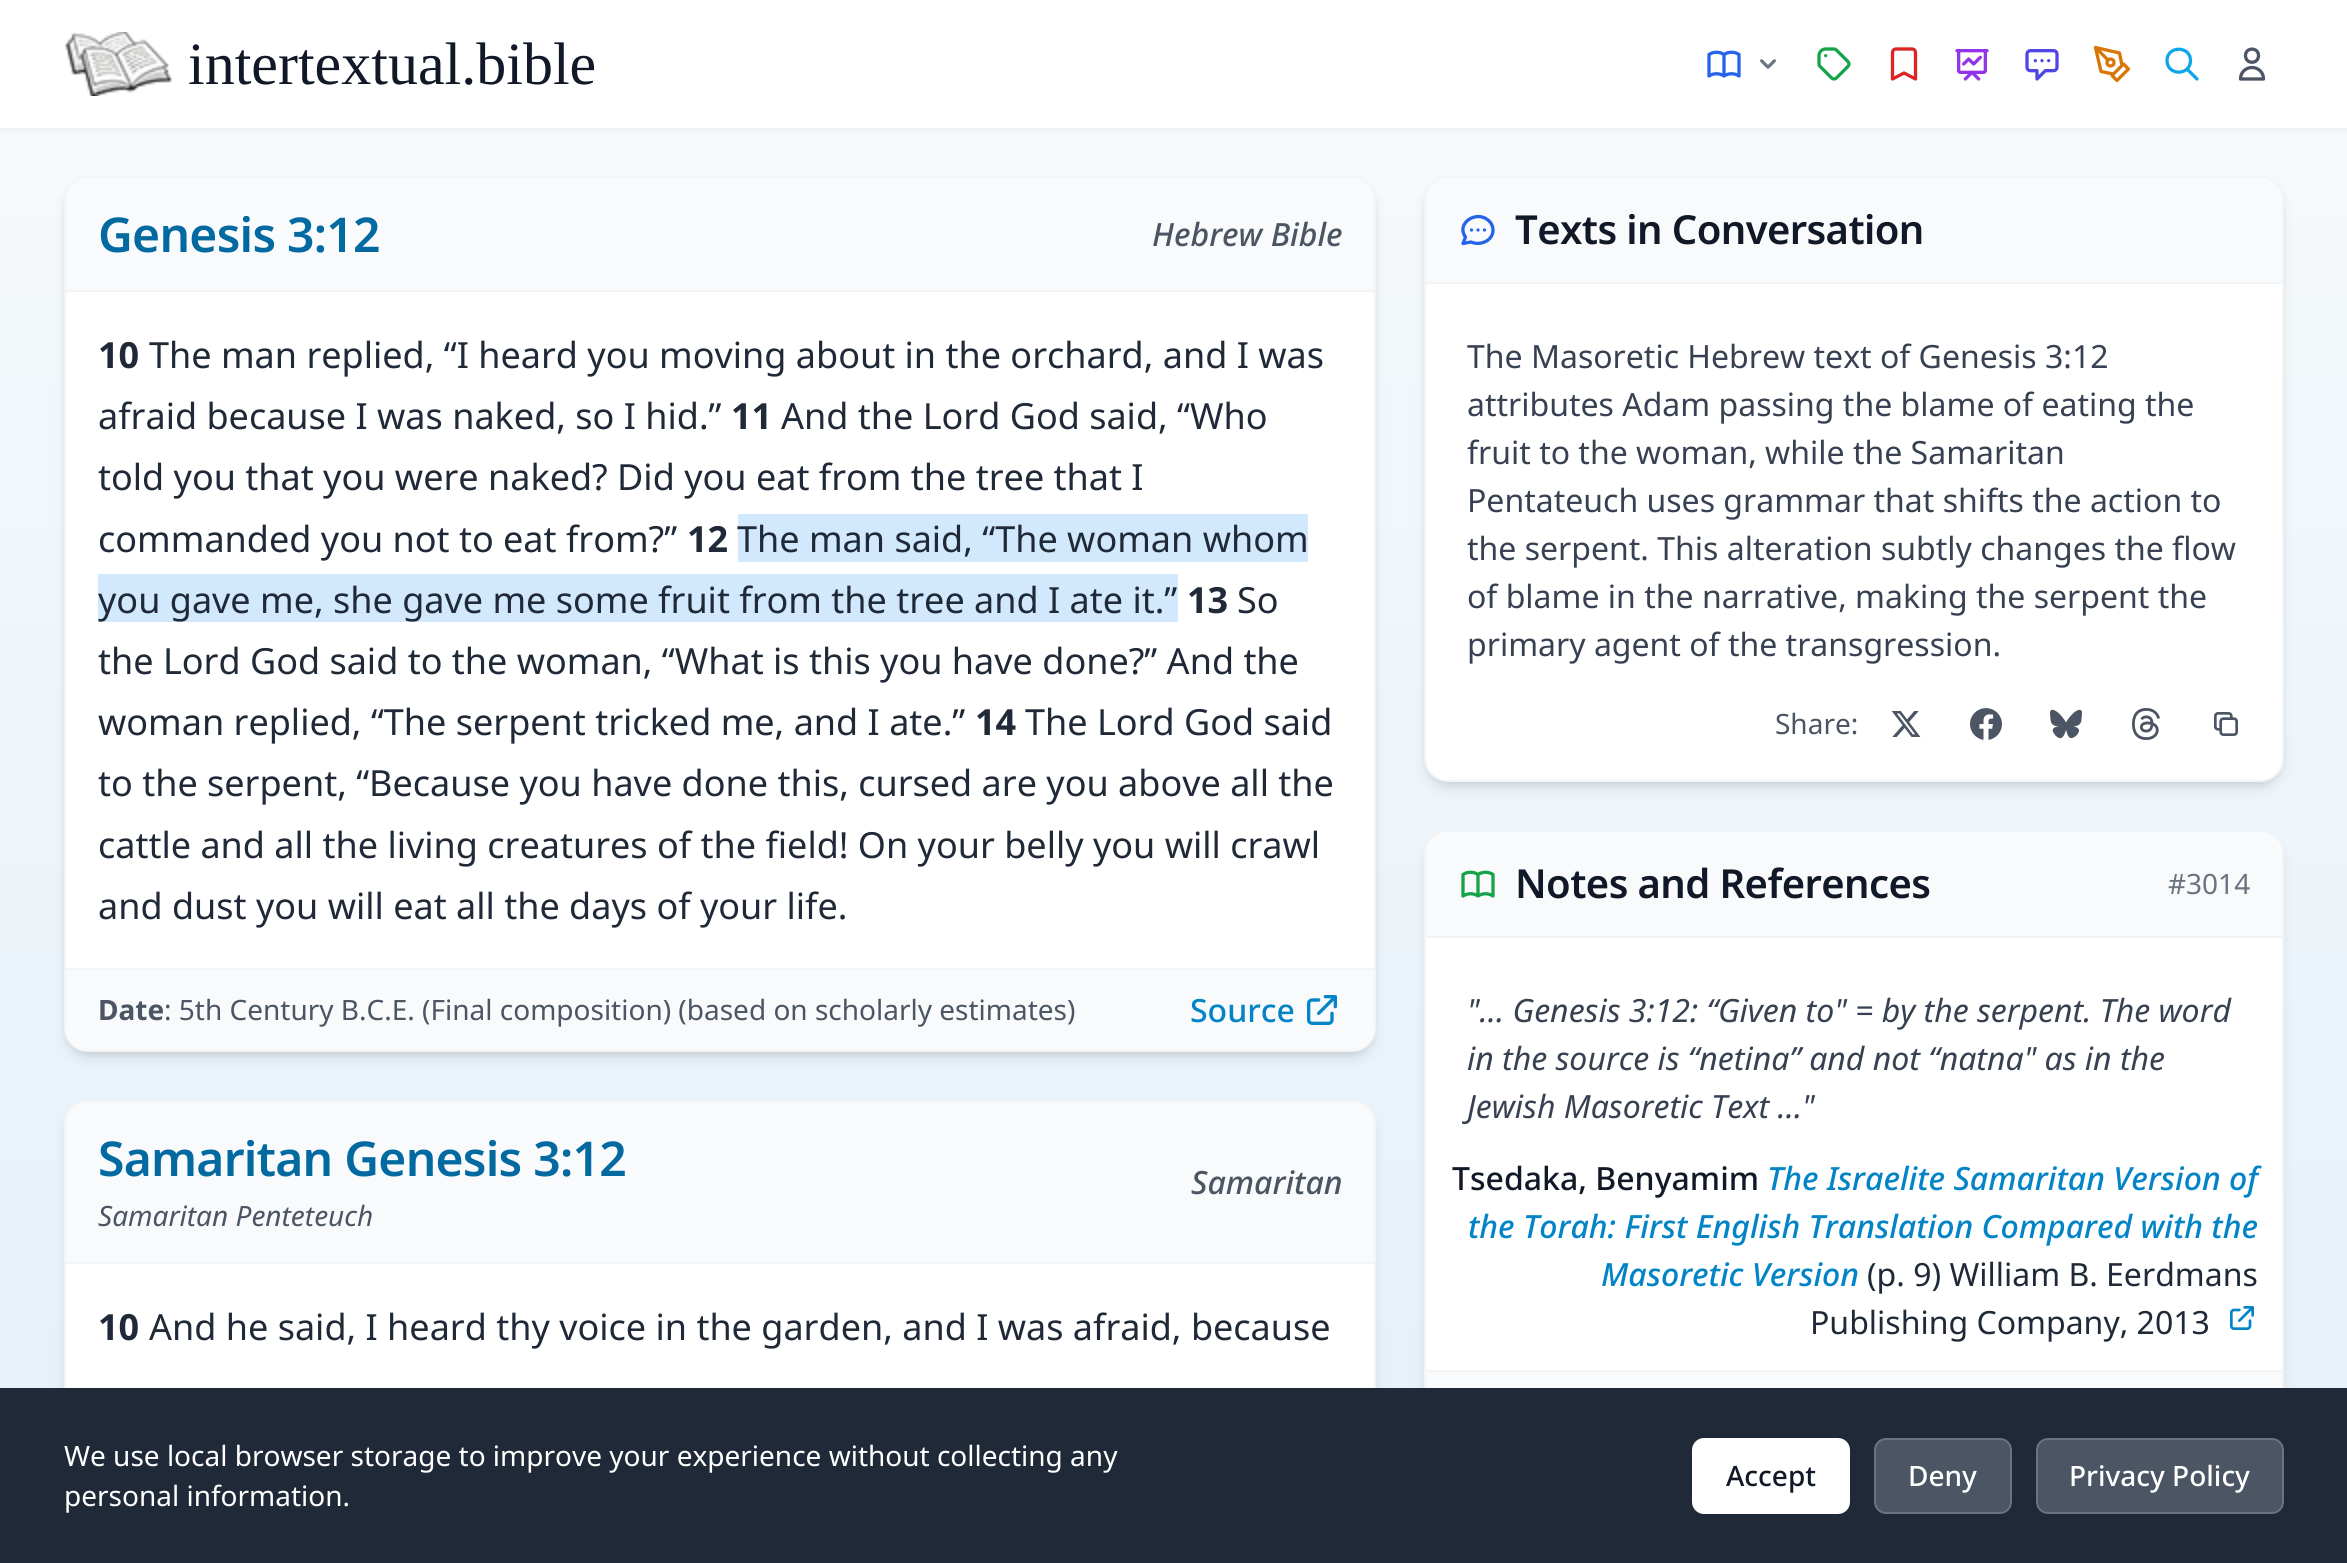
import math
import cairo

surface = cairo.ImageSurface(cairo.FORMAT_RGB24, 2347, 1563)
cr = cairo.Context(surface)
options = cairo.FontOptions()
options.set_hint_metrics(cairo.HINT_METRICS_OFF)
options.set_hint_style(cairo.HINT_STYLE_NONE)
cr.set_font_options(options)
cr.set_miter_limit(4)


def rgb(code):
    cr.set_source_rgb(*(v / 255 for v in bytes.fromhex(code[-6:])))


def tracked(x, y, s, letter, word):
    cr.move_to(x, y)
    for ch in s:
        cr.show_text(ch)
        cr.rel_move_to(letter + word * (ch == ' '), 0)


def rrect(x, y, w, h, r):
    cr.new_sub_path()
    for i, (u, v) in enumerate([(x + w - r, y + h - r), (x + r, y + h - r), (x + r, y + r), (x + w - r, y + r)]):
        cr.arc(u, v, r, i * math.pi / 2, (i + 1) * math.pi / 2)
    cr.close_path()


def soft_shadow(x, y, w, h, r, blur, alpha):
    cr.push_group_with_content(cairo.CONTENT_ALPHA)
    cr.set_operator(cairo.OPERATOR_SOURCE)
    for i in range(15, -16, -2):
        e = blur * i / 6
        if min(w, h) + 2 * e > 0:
            cr.set_source_rgba(0, 0, 0, alpha * math.erfc((i - 1) / 8.5) / 2)
            rrect(x - e, y - e, w + 2 * e, h + 2 * e, max(0, min(r + e + blur * .6, min(w, h) / 2 + e)))
            cr.fill()
    cr.mask(cr.pop_group())


def image(path, x, y, w, h):
    cr.save()
    cr.set_source_surface(cairo.ImageSurface.create_from_png(path), x, y)
    cr.rectangle(x, y, w, h)
    cr.fill()
    cr.restore()


rgb("#ffffff")
cr.paint()
gradient = cairo.LinearGradient(1174, 0, 1174, 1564)
gradient.add_color_stop_rgba(0, 0.969, 0.98, 0.988, 1)
gradient.add_color_stop_rgba(1, 0.894, 0.941, 0.976, 1)
cr.set_source(gradient)
cr.rectangle(0, 128, 2347, 1260)
cr.fill()
rgb("#000000")
soft_shadow(0, 2, 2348, 128, 0, 2, 0.05)
rgb("#ffffff")
cr.rectangle(0, 0, 2347, 128)
cr.fill()
image("img/1.png", 64, 32, 108, 64)
cr.new_path()
cr.move_to(1724, 54.5)
cr.line_to(1724, 76)
cr.move_to(1724, 54.5)
cr.curve_to(1719.5, 51.5, 1713.5, 51.5, 1709, 54.5)
cr.line_to(1709, 76)
cr.curve_to(1713.5, 73, 1719.5, 73, 1724, 76)
cr.move_to(1724, 54.5)
cr.curve_to(1728.5, 51.5, 1734.5, 51.5, 1739, 54.5)
cr.line_to(1739, 76)
cr.curve_to(1734.5, 73, 1728.5, 73, 1724, 76)
rgb("#2563eb")
cr.set_line_width(3.3)
cr.set_line_cap(cairo.LINE_CAP_ROUND)
cr.set_line_join(cairo.LINE_JOIN_ROUND)
cr.stroke()
image("img/2.png", 1760, 59, 16, 10)
image("img/3.png", 1817, 47, 34, 34)
cr.new_path()
cr.move_to(1892.5, 52.5)
cr.curve_to(1892.5, 50.5, 1894, 49, 1895.5, 49)
cr.line_to(1912.5, 49)
cr.curve_to(1914, 49, 1915.5, 50.5, 1915.5, 52.5)
cr.line_to(1915.5, 79)
cr.line_to(1904, 73)
cr.line_to(1892.5, 79)
cr.close_path()
rgb("#dc2626")
cr.stroke()
image("img/4.png", 1955, 49, 34, 32)
image("img/5.png", 2025, 49, 34, 32)
cr.new_path()
cr.move_to(2112, 75.5)
cr.line_to(2123.5, 64)
cr.line_to(2128.5, 69)
cr.line_to(2117, 80.5)
cr.close_path()
cr.move_to(2122, 65.5)
cr.line_to(2119.5, 53)
cr.line_to(2095.5, 47.5)
cr.line_to(2101, 71.5)
cr.line_to(2113.5, 74)
cr.close_path()
cr.move_to(2095.5, 47.5)
cr.line_to(2108, 60)
rgb("#d97706")
cr.stroke()
cr.arc(2110.5, 62.5, 3.5, 0, 2 * math.pi)
cr.set_line_cap(cairo.LINE_CAP_BUTT)
cr.set_line_join(cairo.LINE_JOIN_MITER)
cr.stroke()
cr.new_path()
cr.move_to(2197, 79)
cr.line_to(2187, 69)
cr.move_to(2190.5, 60.5)
cr.curve_to(2190.5, 76, 2167, 76, 2167, 60.5)
cr.curve_to(2167, 45.5, 2190.5, 45.5, 2190.5, 60.5)
cr.close_path()
rgb("#0ea5e9")
cr.set_line_cap(cairo.LINE_CAP_ROUND)
cr.set_line_join(cairo.LINE_JOIN_ROUND)
cr.stroke()
cr.new_path()
cr.move_to(2258.5, 55.5)
cr.curve_to(2258.5, 64.5, 2245.5, 64.5, 2245.5, 55.5)
cr.curve_to(2245.5, 47, 2258.5, 47, 2258.5, 55.5)
cr.close_path()
cr.move_to(2252, 67.5)
cr.curve_to(2245.5, 67.5, 2240.5, 72.5, 2240.5, 79)
cr.line_to(2263.5, 79)
cr.curve_to(2263.5, 72.5, 2258.5, 67.5, 2252, 67.5)
cr.close_path()
rgb("#4b5563")
cr.stroke()
rgb("#000000")
soft_shadow(68, 184, 1304, 868, 20, 4, 0.1)
soft_shadow(66, 186, 1308, 872, 22, 6, 0.1)
rgb("#ffffff")
rrect(65, 177, 1310, 874, 23)
cr.fill_preserve()
rgb("#f3f4f6")
cr.set_line_width(2)
cr.set_line_cap(cairo.LINE_CAP_BUTT)
cr.set_line_join(cairo.LINE_JOIN_MITER)
cr.stroke()
rgb("#f9fafb")
cr.new_path()
cr.move_to(88, 178)
cr.line_to(1352, 178)
cr.curve_to(1364, 178, 1374, 188, 1374, 200)
cr.line_to(1374, 290)
cr.line_to(66, 290)
cr.line_to(66, 200)
cr.curve_to(66, 188, 76, 178, 88, 178)
cr.close_path()
cr.fill()
for x, y, w, h, color in [
    (66, 290, 1308, 2, "#f3f4f6"),
    (738, 514, 570, 48, "#d1e8fd"),
    (98, 574, 1080, 48, "#d1e8fd"),
]:
    rgb(color)
    cr.rectangle(x, y, w, h)
    cr.fill()
rgb("#f9fafb")
cr.new_path()
cr.move_to(66, 970)
cr.line_to(1374, 970)
cr.line_to(1374, 1028)
cr.curve_to(1374, 1040, 1364, 1050, 1352, 1050)
cr.line_to(88, 1050)
cr.curve_to(76, 1050, 66, 1040, 66, 1028)
cr.close_path()
cr.fill()
rgb("#f3f4f6")
cr.rectangle(66, 968, 1308, 2)
cr.fill()
image("img/6.png", 1307, 995, 30, 30)
rgb("#000000")
soft_shadow(66, 1110, 1308, 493, 22, 6, 0.1)
rgb("#ffffff")
rrect(65, 1101, 1310, 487, 23)
cr.fill_preserve()
rgb("#f3f4f6")
cr.stroke()
rgb("#f9fafb")
cr.new_path()
cr.move_to(88, 1102)
cr.line_to(1352, 1102)
cr.curve_to(1364, 1102, 1374, 1112, 1374, 1124)
cr.line_to(1374, 1262)
cr.line_to(66, 1262)
cr.line_to(66, 1124)
cr.curve_to(66, 1112, 76, 1102, 88, 1102)
cr.close_path()
cr.fill()
rgb("#f3f4f6")
cr.rectangle(66, 1262, 1308, 2)
cr.fill()
rgb("#000000")
soft_shadow(1428, 184, 852, 598, 20, 4, 0.1)
soft_shadow(1426, 186, 856, 602, 22, 6, 0.1)
rgb("#ffffff")
rrect(1425, 177, 858, 604, 23)
cr.fill_preserve()
rgb("#f3f4f6")
cr.stroke()
rgb("#f9fafb")
cr.new_path()
cr.move_to(1448, 178)
cr.line_to(2260, 178)
cr.curve_to(2272, 178, 2282, 188, 2282, 200)
cr.line_to(2282, 282)
cr.line_to(1426, 282)
cr.line_to(1426, 200)
cr.curve_to(1426, 188, 1436, 178, 1448, 178)
cr.close_path()
cr.fill()
rgb("#f3f4f6")
cr.rectangle(1426, 282, 856, 2)
cr.fill()
cr.new_path()
cr.move_to(1471.5, 230)
cr.line_to(1471.5, 230)
cr.move_to(1478, 230)
cr.line_to(1478, 230)
cr.move_to(1484.5, 230)
cr.line_to(1484.5, 230)
cr.move_to(1493, 230)
cr.curve_to(1493, 241, 1480, 246, 1471, 242)
cr.line_to(1463, 243.5)
cr.line_to(1465.5, 237)
cr.curve_to(1455.5, 223.5, 1476.5, 209.5, 1488.5, 220.5)
cr.curve_to(1491.5, 223, 1493, 226.5, 1493, 230)
cr.close_path()
rgb("#2563eb")
cr.set_line_width(3.3)
cr.set_line_cap(cairo.LINE_CAP_ROUND)
cr.set_line_join(cairo.LINE_JOIN_ROUND)
cr.stroke()
image("img/7.png", 1891, 711, 30, 26)
image("img/8.png", 1970, 708, 32, 32)
image("img/9.png", 2050, 709, 32, 30)
image("img/10.png", 2132, 708, 28, 32)
image("img/11.png", 2214, 712, 24, 24)
rgb("#000000")
soft_shadow(1426, 840, 856, 684, 22, 6, 0.1)
rgb("#ffffff")
rrect(1425, 831, 858, 686, 23)
cr.fill_preserve()
rgb("#f3f4f6")
cr.set_line_width(2)
cr.set_line_cap(cairo.LINE_CAP_BUTT)
cr.set_line_join(cairo.LINE_JOIN_MITER)
cr.stroke()
rgb("#f9fafb")
cr.new_path()
cr.move_to(1448, 832)
cr.line_to(2260, 832)
cr.curve_to(2272, 832, 2282, 842, 2282, 854)
cr.line_to(2282, 936)
cr.line_to(1426, 936)
cr.line_to(1426, 854)
cr.curve_to(1426, 842, 1436, 832, 1448, 832)
cr.close_path()
cr.fill()
rgb("#f3f4f6")
cr.rectangle(1426, 936, 856, 2)
cr.fill()
cr.new_path()
cr.move_to(1478, 874.5)
cr.line_to(1478, 896)
cr.move_to(1478, 874.5)
cr.curve_to(1473.5, 871.5, 1467.5, 871.5, 1463, 874.5)
cr.line_to(1463, 896)
cr.curve_to(1467.5, 893, 1473.5, 893, 1478, 896)
cr.move_to(1478, 874.5)
cr.curve_to(1482.5, 871.5, 1488.5, 871.5, 1493, 874.5)
cr.line_to(1493, 896)
cr.curve_to(1488.5, 893, 1482.5, 893, 1478, 896)
rgb("#16a34a")
cr.set_line_width(3.3)
cr.set_line_cap(cairo.LINE_CAP_ROUND)
cr.set_line_join(cairo.LINE_JOIN_ROUND)
cr.stroke()
image("img/12.png", 2230, 1306, 24, 24)
for x, y, w, h, color in [
    (1426, 1372, 856, 16, "#f9fafb"),
    (1426, 1370, 856, 2, "#f3f4f6"),
    (0, 1388, 2347, 175, "#1f2937"),
]:
    rgb(color)
    cr.rectangle(x, y, w, h)
    cr.fill()
rgb("#ffffff")
rrect(1692, 1438, 158, 76, 12)
cr.fill()
rgb("#4b5563")
rrect(1875, 1439, 136, 74, 11)
cr.fill_preserve()
rgb("#6b7280")
cr.set_line_width(2)
cr.set_line_cap(cairo.LINE_CAP_BUTT)
cr.set_line_join(cairo.LINE_JOIN_MITER)
cr.stroke()
rgb("#4b5563")
rrect(2037, 1439, 246, 74, 11)
cr.fill_preserve()
rgb("#6b7280")
cr.stroke()
cr.select_font_face("Liberation Serif")
cr.set_font_size(60)
rgb("#111827")
cr.move_to(188, 84)
cr.show_text("intertextual.bible")
cr.select_font_face("Noto Sans SemiBold")
cr.set_font_size(48)
rgb("#0369a1")
tracked(98, 252, "Genesis 3:12", -0.75, 0)
cr.select_font_face("Noto Sans Medium", cairo.FONT_SLANT_ITALIC)
cr.set_font_size(32)
rgb("#4b5563")
cr.move_to(1152, 246)
cr.show_text("Hebrew Bible")
cr.select_font_face("Noto Sans", cairo.FONT_SLANT_NORMAL, cairo.FONT_WEIGHT_BOLD)
cr.set_font_size(36)
rgb("#1f2937")
cr.move_to(98, 368)
cr.show_text("10")
cr.select_font_face("Noto Sans")
cr.move_to(149, 368)
cr.show_text("The man replied, “I heard you moving about in the orchard, and I was")
cr.move_to(98, 429)
cr.show_text("afraid because I was naked, so I hid.”")
cr.select_font_face("Noto Sans", cairo.FONT_SLANT_NORMAL, cairo.FONT_WEIGHT_BOLD)
cr.move_to(731, 429)
cr.show_text("11")
cr.select_font_face("Noto Sans")
for x, y, s in [
    (781, 429, "And the Lord God said, “Who"),
    (98, 490, "told you that you were naked? Did you eat from the tree that I"),
    (98, 552, "commanded you not to eat from?”"),
]:
    cr.move_to(x, y)
    cr.show_text(s)
cr.select_font_face("Noto Sans", cairo.FONT_SLANT_NORMAL, cairo.FONT_WEIGHT_BOLD)
cr.move_to(687, 552)
cr.show_text("12")
cr.select_font_face("Noto Sans")
cr.move_to(737, 552)
cr.show_text("The man said, “The woman whom")
cr.move_to(98, 613)
cr.show_text("you gave me, she gave me some fruit from the tree and I ate it.”")
cr.select_font_face("Noto Sans", cairo.FONT_SLANT_NORMAL, cairo.FONT_WEIGHT_BOLD)
cr.move_to(1187, 613)
cr.show_text("13")
cr.select_font_face("Noto Sans")
for x, y, s in [
    (1237, 613, "So"),
    (98, 674, "the Lord God said to the woman, “What is this you have done?” And the"),
    (98, 735, "woman replied, “The serpent tricked me, and I ate.”"),
]:
    cr.move_to(x, y)
    cr.show_text(s)
cr.select_font_face("Noto Sans", cairo.FONT_SLANT_NORMAL, cairo.FONT_WEIGHT_BOLD)
cr.move_to(975, 735)
cr.show_text("14")
cr.select_font_face("Noto Sans")
for x, y, s in [
    (1025, 735, "The Lord God said"),
    (98, 796, "to the serpent, “Because you have done this, cursed are you above all the"),
    (98, 858, "cattle and all the living creatures of the field! On your belly you will crawl"),
    (98, 919, "and dust you will eat all the days of your life."),
]:
    cr.move_to(x, y)
    cr.show_text(s)
cr.select_font_face("Noto Sans", cairo.FONT_SLANT_NORMAL, cairo.FONT_WEIGHT_BOLD)
cr.set_font_size(28)
rgb("#4b5563")
cr.move_to(98, 1020)
cr.show_text("Date")
cr.select_font_face("Noto Sans")
cr.move_to(164, 1020)
cr.show_text(": 5th Century B.C.E. (Final composition) (based on scholarly estimates)")
cr.select_font_face("Noto Sans Medium")
cr.set_font_size(32)
rgb("#0284c7")
cr.move_to(1190, 1022)
cr.show_text("Source")
cr.select_font_face("Noto Sans SemiBold")
cr.set_font_size(48)
rgb("#0369a1")
tracked(98, 1176, "Samaritan Genesis 3:12", -0.75, 0)
cr.select_font_face("Noto Sans", cairo.FONT_SLANT_ITALIC)
cr.set_font_size(28)
rgb("#4b5563")
cr.move_to(98, 1226)
cr.show_text("Samaritan Penteteuch")
cr.select_font_face("Noto Sans Medium", cairo.FONT_SLANT_ITALIC)
cr.set_font_size(32)
cr.move_to(1191, 1194)
cr.show_text("Samaritan")
cr.select_font_face("Noto Sans", cairo.FONT_SLANT_NORMAL, cairo.FONT_WEIGHT_BOLD)
cr.set_font_size(36)
rgb("#1f2937")
cr.move_to(98, 1340)
cr.show_text("10")
cr.select_font_face("Noto Sans")
cr.move_to(149, 1340)
cr.show_text("And he said, I heard thy voice in the garden, and I was afraid, because")
cr.select_font_face("Noto Sans SemiBold")
cr.set_font_size(40)
rgb("#111827")
tracked(1515, 244, "Texts in Conversation", -0.6, 0)
cr.select_font_face("Noto Sans")
cr.set_font_size(32)
rgb("#374151")
for x, y, s in [
    (1467, 368, "The Masoretic Hebrew text of Genesis 3:12"),
    (1467, 416, "attributes Adam passing the blame of eating the"),
    (1467, 464, "fruit to the woman, while the Samaritan"),
    (1467, 512, "Pentateuch uses grammar that shifts the action to"),
    (1467, 560, "the serpent. This alteration subtly changes the flow"),
    (1467, 608, "of blame in the narrative, making the serpent the"),
    (1467, 656, "primary agent of the transgression."),
]:
    cr.move_to(x, y)
    cr.show_text(s)
cr.set_font_size(28)
rgb("#4b5563")
cr.move_to(1775, 734)
cr.show_text("Share:")
cr.select_font_face("Noto Sans SemiBold")
cr.set_font_size(40)
rgb("#111827")
tracked(1515, 898, "Notes and References", -0.6, 0)
cr.select_font_face("Noto Sans")
cr.set_font_size(28)
rgb("#6b7280")
cr.move_to(2168, 894)
cr.show_text("#3014")
cr.select_font_face("Noto Sans", cairo.FONT_SLANT_ITALIC)
cr.set_font_size(32)
rgb("#374151")
for x, y, s in [
    (1467, 1022, "\"... Genesis 3:12: “Given to\" = by the serpent. The word"),
    (1467, 1070, "in the source is “netina” and not “natna\" as in the"),
    (1467, 1118, "Jewish Masoretic Text ...\""),
]:
    cr.move_to(x, y)
    cr.show_text(s)
cr.select_font_face("Noto Sans Medium")
rgb("#111827")
cr.move_to(1452, 1190)
cr.show_text("Tsedaka, Benyamim")
cr.select_font_face("Noto Sans Medium", cairo.FONT_SLANT_ITALIC)
rgb("#0284c7")
for x, y, s in [
    (1767, 1190, "The Israelite Samaritan Version of"),
    (1468, 1238, "the Torah: First English Translation Compared with the"),
    (1601, 1286, "Masoretic Version"),
]:
    cr.move_to(x, y)
    cr.show_text(s)
cr.select_font_face("Noto Sans")
rgb("#1f2937")
cr.move_to(1867, 1286)
cr.show_text("(p. 9) William B. Eerdmans")
cr.move_to(1810, 1334)
cr.show_text("Publishing Company, 2013")
cr.set_font_size(28)
rgb("#ffffff")
cr.move_to(64, 1466)
cr.show_text("We use local browser storage to improve your experience without collecting any")
cr.move_to(64, 1506)
cr.show_text("personal information.")
cr.select_font_face("Noto Sans Medium")
rgb("#111827")
cr.move_to(1726, 1486)
cr.show_text("Accept")
rgb("#ffffff")
cr.move_to(1908, 1486)
cr.show_text("Deny")
cr.move_to(2069, 1486)
cr.show_text("Privacy Policy")
surface.write_to_png("page.png")
